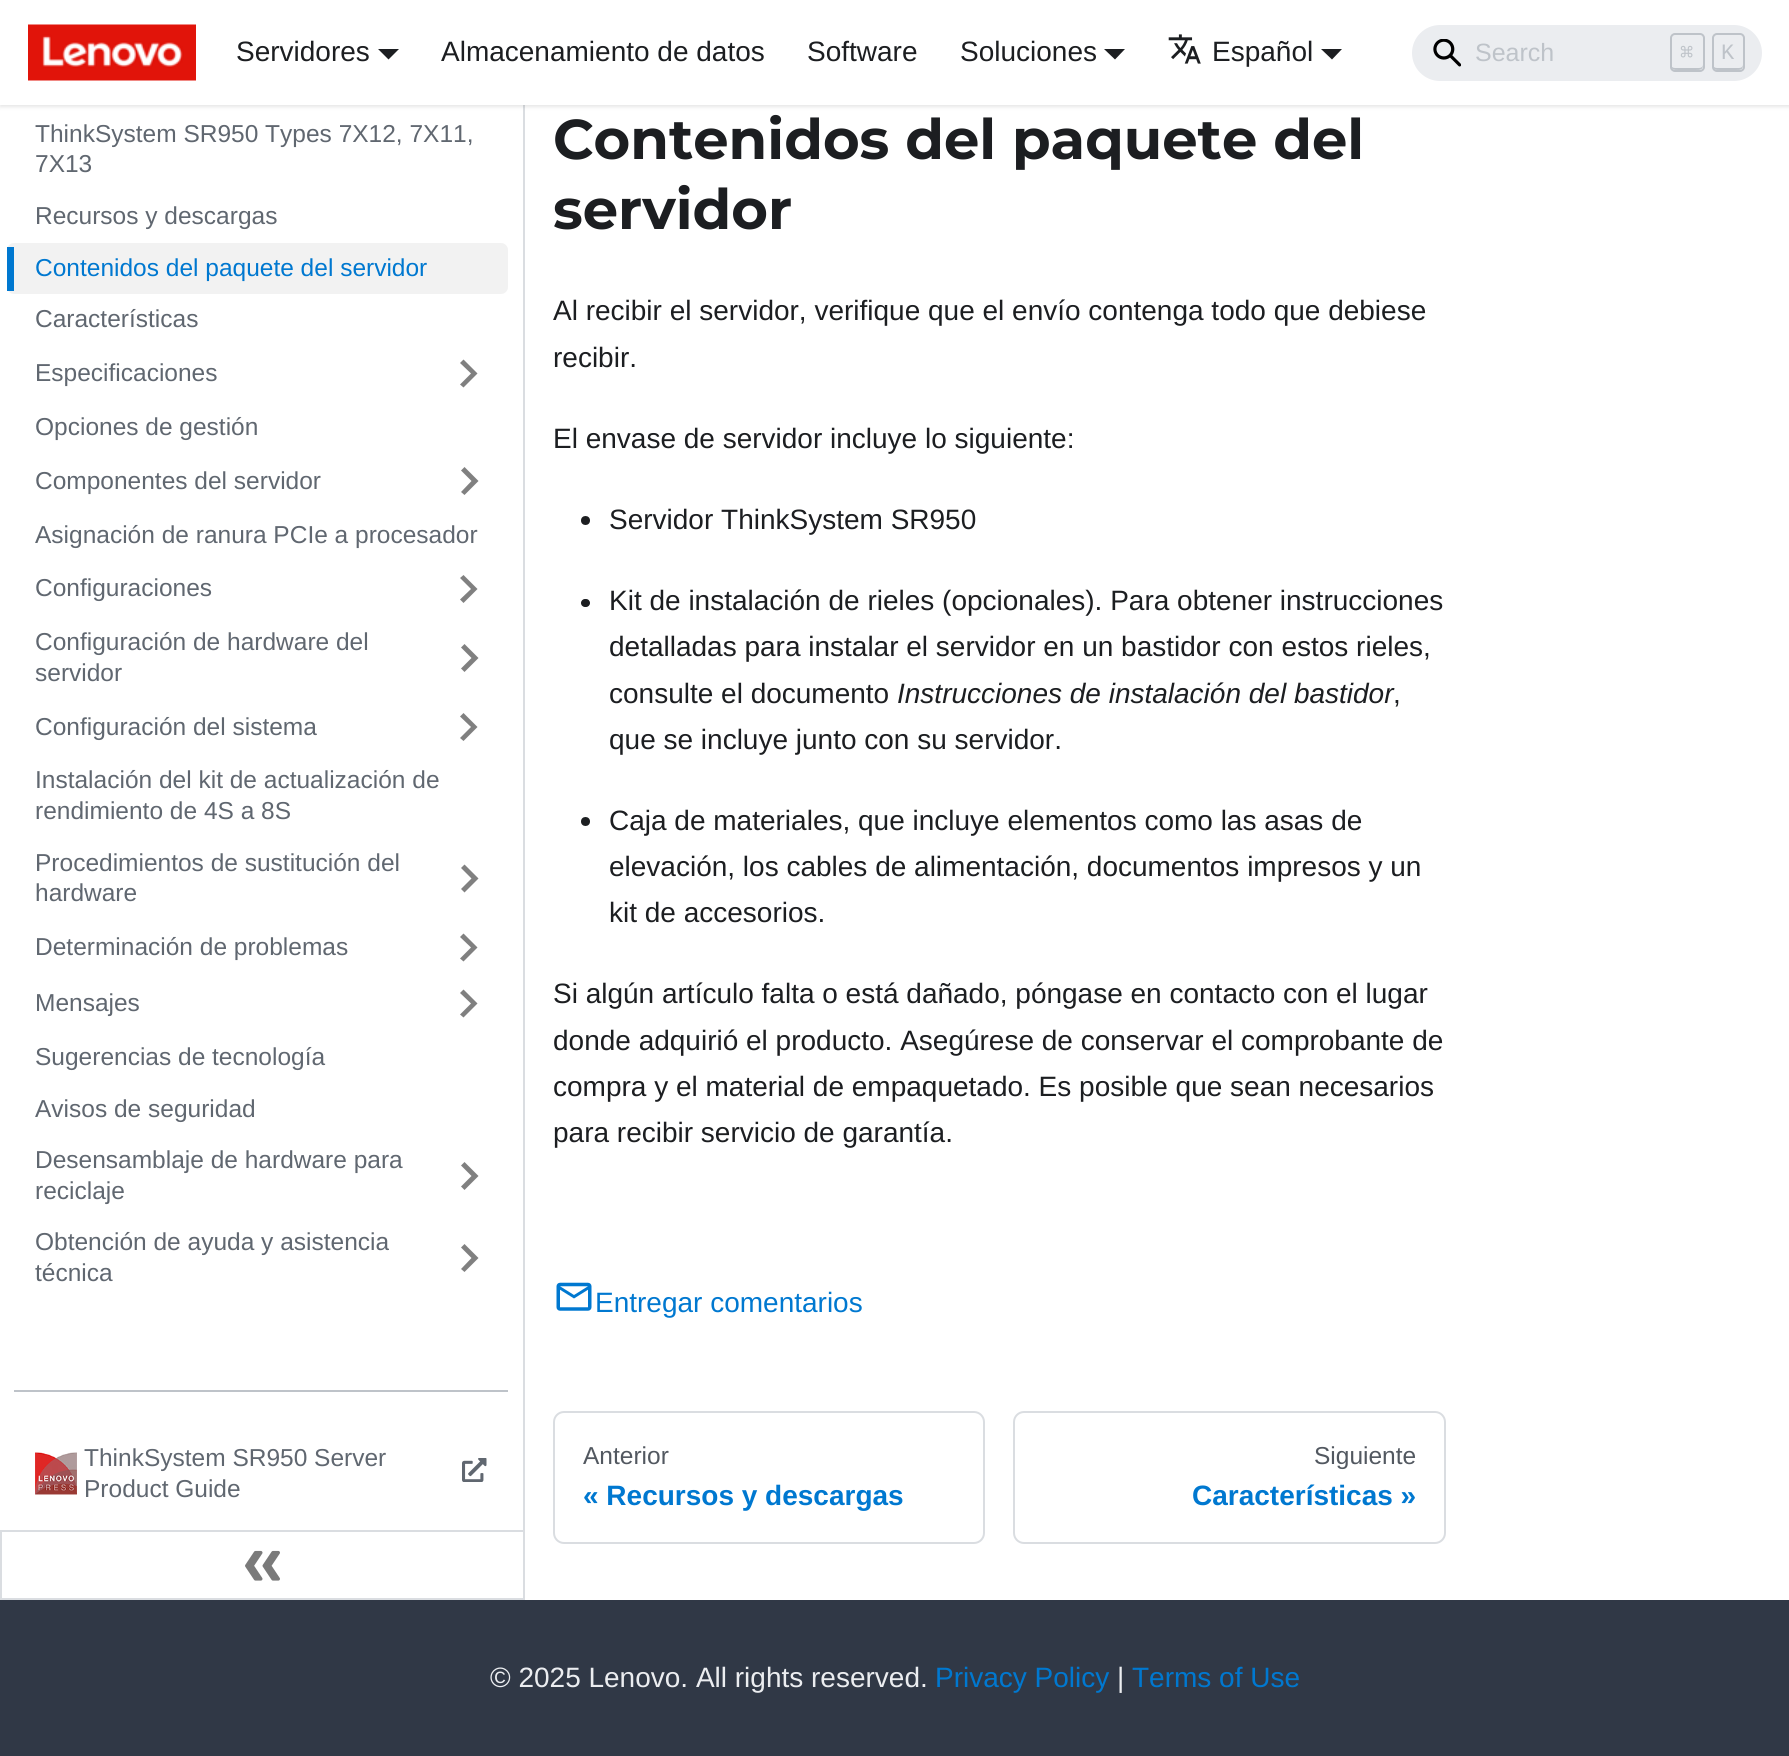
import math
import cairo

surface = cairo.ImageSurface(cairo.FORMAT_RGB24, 1789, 1756)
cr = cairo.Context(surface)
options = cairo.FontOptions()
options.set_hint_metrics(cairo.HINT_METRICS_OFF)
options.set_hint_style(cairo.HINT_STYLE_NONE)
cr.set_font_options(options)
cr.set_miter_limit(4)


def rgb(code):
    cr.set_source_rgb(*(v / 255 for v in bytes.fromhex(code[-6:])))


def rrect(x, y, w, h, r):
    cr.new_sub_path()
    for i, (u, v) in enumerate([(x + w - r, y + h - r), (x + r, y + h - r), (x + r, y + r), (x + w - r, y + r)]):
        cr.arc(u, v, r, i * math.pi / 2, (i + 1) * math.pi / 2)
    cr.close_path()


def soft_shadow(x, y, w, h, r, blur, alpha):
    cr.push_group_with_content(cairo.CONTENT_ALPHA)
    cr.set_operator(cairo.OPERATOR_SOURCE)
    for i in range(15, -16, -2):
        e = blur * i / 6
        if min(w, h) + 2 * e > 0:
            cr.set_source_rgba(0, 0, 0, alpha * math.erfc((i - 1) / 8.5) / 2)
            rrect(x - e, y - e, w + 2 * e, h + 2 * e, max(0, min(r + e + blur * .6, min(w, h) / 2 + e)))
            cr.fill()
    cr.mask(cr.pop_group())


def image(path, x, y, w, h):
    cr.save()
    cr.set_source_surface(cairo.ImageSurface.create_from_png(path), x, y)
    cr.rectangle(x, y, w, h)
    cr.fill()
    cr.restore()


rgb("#ffffff")
cr.paint()
rgb("#dadde1")
cr.rectangle(523, 105, 2, 1425)
cr.fill()
rgb("#000000")
soft_shadow(0, 2, 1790, 105, 0, 2, 0.1)
rgb("#ffffff")
cr.rectangle(0, 0, 1789, 105)
cr.fill()
image("img/1.png", 28, 24, 168, 57)
rgb("#1c1e21")
cr.new_path()
cr.move_to(378, 49)
cr.line_to(399, 49)
cr.line_to(388.5, 59.5)
cr.close_path()
cr.fill()
cr.new_path()
cr.move_to(1104, 49)
cr.line_to(1125, 49)
cr.line_to(1115, 59.5)
cr.close_path()
cr.fill()
image("img/2.png", 1168, 34, 33, 30)
cr.new_path()
cr.move_to(1321, 49)
cr.line_to(1342, 49)
cr.line_to(1332, 59.5)
cr.close_path()
cr.fill()
rgb("#ebedf0")
rrect(1412, 25, 350, 56, 28)
cr.fill()
image("img/3.png", 1433, 39, 28, 28)
rgb("#bec3c9")
cr.new_path()
cr.move_to(1671, 64)
cr.curve_to(1671, 70, 1673.5, 70, 1679, 70)
cr.line_to(1695, 70)
cr.curve_to(1700.5, 70, 1703, 70, 1703, 64)
cr.curve_to(1703, 67, 1701, 68, 1699, 68)
cr.line_to(1675, 68)
cr.curve_to(1673, 68, 1671, 67, 1671, 64)
cr.close_path()
cr.fill()
rrect(1671, 34, 33, 37, 4)
cr.stroke()
cr.new_path()
cr.move_to(1713, 64)
cr.curve_to(1713, 70, 1715, 70, 1720.5, 70)
cr.line_to(1735.5, 70)
cr.curve_to(1741, 70, 1743, 70, 1743, 64)
cr.curve_to(1743, 67, 1741, 68, 1739, 68)
cr.line_to(1717, 68)
cr.curve_to(1715, 68, 1713, 67, 1713, 64)
cr.close_path()
cr.fill()
rrect(1713, 34, 31, 37, 4)
cr.stroke()
rgb("#f2f2f2")
rrect(7, 243, 501, 51, 7)
cr.fill()
rgb("#0078d0")
cr.rectangle(7, 247, 7, 44)
cr.fill()
rgb("#808080")
cr.new_path()
cr.move_to(460, 363)
cr.line_to(471, 373.5)
cr.line_to(460, 384.5)
cr.line_to(463.5, 387.5)
cr.line_to(477.5, 373.5)
cr.line_to(463.5, 359.5)
cr.close_path()
cr.fill()
cr.new_path()
cr.move_to(461, 470.5)
cr.line_to(471.5, 481)
cr.line_to(461, 492)
cr.line_to(464.5, 495)
cr.line_to(478.5, 481)
cr.line_to(464.5, 467)
cr.close_path()
cr.fill()
cr.new_path()
cr.move_to(460, 578)
cr.line_to(471, 589)
cr.line_to(460, 599.5)
cr.line_to(463.5, 603)
cr.line_to(477.5, 589)
cr.line_to(463.5, 575)
cr.close_path()
cr.fill()
cr.new_path()
cr.move_to(461, 647.5)
cr.line_to(471.5, 658)
cr.line_to(461, 668.5)
cr.line_to(464.5, 672)
cr.line_to(478.5, 658)
cr.line_to(464.5, 644)
cr.close_path()
cr.fill()
cr.new_path()
cr.move_to(460, 716.5)
cr.line_to(471, 727)
cr.line_to(460, 738)
cr.line_to(463.5, 741)
cr.line_to(477.5, 727)
cr.line_to(463.5, 713)
cr.close_path()
cr.fill()
cr.new_path()
cr.move_to(461, 868)
cr.line_to(471.5, 878.5)
cr.line_to(461, 889)
cr.line_to(464.5, 892.5)
cr.line_to(478.5, 878.5)
cr.line_to(464.5, 864.5)
cr.close_path()
cr.fill()
cr.new_path()
cr.move_to(460, 937)
cr.line_to(471, 947.5)
cr.line_to(460, 958.5)
cr.line_to(463.5, 961.5)
cr.line_to(477.5, 947.5)
cr.line_to(463.5, 933.5)
cr.close_path()
cr.fill()
cr.new_path()
cr.move_to(460, 993)
cr.line_to(471, 1003.5)
cr.line_to(460, 1014.5)
cr.line_to(463.5, 1017.5)
cr.line_to(477.5, 1003.5)
cr.line_to(463.5, 989.5)
cr.close_path()
cr.fill()
cr.new_path()
cr.move_to(461, 1165.5)
cr.line_to(471.5, 1176)
cr.line_to(461, 1186.5)
cr.line_to(464.5, 1190)
cr.line_to(478.5, 1176)
cr.line_to(464.5, 1162)
cr.close_path()
cr.fill()
cr.new_path()
cr.move_to(461, 1247.5)
cr.line_to(471.5, 1258)
cr.line_to(461, 1269)
cr.line_to(464.5, 1272)
cr.line_to(478.5, 1258)
cr.line_to(464.5, 1244)
cr.close_path()
cr.fill()
rgb("#bec3c9")
cr.rectangle(14, 1390, 494, 2)
cr.fill()
image("img/4.png", 35, 1452, 42, 43)
image("img/5.png", 462, 1458, 25, 24)
cr.rectangle(1, 1531, 523, 68)
rgb("#dadde1")
cr.stroke()
image("img/6.png", 245, 1550, 35, 31)
rgb("#1c1e21")
cr.arc(585.5, 520.5, 4.5, 0, 2 * math.pi)
cr.fill()
rrect(581, 599, 9, 8, 4)
cr.fill()
cr.arc(585.5, 821.5, 4.5, 0, 2 * math.pi)
cr.fill()
image("img/7.png", 556, 1282, 36, 29)
rrect(554, 1412, 430, 131, 10)
rgb("#dadde1")
cr.stroke()
rrect(1014, 1412, 431, 131, 10)
cr.stroke()
rgb("#303846")
cr.rectangle(0, 1600, 1789, 156)
cr.fill()
cr.select_font_face("Liberation Sans")
cr.set_font_size(28)
rgb("#1c1e21")
for x, y, s in [
    (236, 61, "Servidores"),
    (441, 61, "Almacenamiento de datos"),
    (807, 61, "Software"),
    (960, 61, "Soluciones"),
    (1212, 61, "Español"),
]:
    cr.move_to(x, y)
    cr.show_text(s)
cr.set_font_size(25)
rgb("#bec3c9")
cr.move_to(1475, 61)
cr.show_text("Search")
cr.select_font_face("DejaVu Sans Mono")
cr.set_font_size(22)
cr.move_to(1680, 60)
cr.show_text("⌘")
cr.select_font_face("Liberation Mono")
cr.move_to(1721, 59)
cr.show_text("K")
cr.select_font_face("Liberation Sans")
cr.set_font_size(24.5)
rgb("#606770")
for x, y, s in [
    (35, 142, "ThinkSystem SR950 Types 7X12, 7X11,"),
    (35, 172, "7X13"),
    (35, 224, "Recursos y descargas"),
]:
    cr.move_to(x, y)
    cr.show_text(s)
rgb("#0078d0")
cr.move_to(35, 276)
cr.show_text("Contenidos del paquete del servidor")
rgb("#606770")
for x, y, s in [
    (35, 327, "Características"),
    (35, 381, "Especificaciones"),
    (35, 435, "Opciones de gestión"),
    (35, 489, "Componentes del servidor"),
    (35, 543, "Asignación de ranura PCIe a procesador"),
    (35, 596, "Configuraciones"),
    (35, 650, "Configuración de hardware del"),
    (35, 681, "servidor"),
    (35, 735, "Configuración del sistema"),
    (35, 788, "Instalación del kit de actualización de"),
    (35, 819, "rendimiento de 4S a 8S"),
    (35, 871, "Procedimientos de sustitución del"),
    (35, 901, "hardware"),
    (35, 955, "Determinación de problemas"),
    (35, 1011, "Mensajes"),
    (35, 1065, "Sugerencias de tecnología"),
    (35, 1117, "Avisos de seguridad"),
    (35, 1168, "Desensamblaje de hardware para"),
    (35, 1199, "reciclaje"),
    (35, 1250, "Obtención de ayuda y asistencia"),
    (35, 1281, "técnica"),
    (84, 1466, "ThinkSystem SR950 Server"),
    (84, 1497, "Product Guide"),
]:
    cr.move_to(x, y)
    cr.show_text(s)
cr.select_font_face("Montserrat", cairo.FONT_SLANT_NORMAL, cairo.FONT_WEIGHT_BOLD)
cr.set_font_size(56)
rgb("#1c1e21")
cr.move_to(553, 159)
cr.show_text("Contenidos del paquete del")
cr.move_to(553, 229)
cr.show_text("servidor")
cr.select_font_face("Liberation Sans")
cr.set_font_size(28)
for x, y, s in [
    (553, 320, "Al recibir el servidor, verifique que el envío contenga todo que debiese"),
    (553, 367, "recibir."),
    (553, 448, "El envase de servidor incluye lo siguiente:"),
    (609, 529, "Servidor ThinkSystem SR950"),
    (609, 610, "Kit de instalación de rieles (opcionales). Para obtener instrucciones"),
    (609, 656, "detalladas para instalar el servidor en un bastidor con estos rieles,"),
    (609, 703, "consulte el documento"),
]:
    cr.move_to(x, y)
    cr.show_text(s)
cr.select_font_face("Liberation Sans", cairo.FONT_SLANT_ITALIC)
cr.move_to(897, 703)
cr.show_text("Instrucciones de instalación del bastidor")
cr.select_font_face("Liberation Sans")
for x, y, s in [
    (1393, 703, ","),
    (609, 749, "que se incluye junto con su servidor."),
    (609, 830, "Caja de materiales, que incluye elementos como las asas de"),
    (609, 876, "elevación, los cables de alimentación, documentos impresos y un"),
    (609, 922, "kit de accesorios."),
    (553, 1003, "Si algún artículo falta o está dañado, póngase en contacto con el lugar"),
    (553, 1050, "donde adquirió el producto. Asegúrese de conservar el comprobante de"),
    (553, 1096, "compra y el material de empaquetado. Es posible que sean necesarios"),
    (553, 1142, "para recibir servicio de garantía."),
]:
    cr.move_to(x, y)
    cr.show_text(s)
rgb("#0078d0")
cr.move_to(595, 1312)
cr.show_text("Entregar comentarios")
cr.set_font_size(24.5)
rgb("#525860")
cr.move_to(583, 1464)
cr.show_text("Anterior")
cr.select_font_face("Liberation Sans", cairo.FONT_SLANT_NORMAL, cairo.FONT_WEIGHT_BOLD)
cr.set_font_size(28)
rgb("#0078d0")
cr.move_to(583, 1505)
cr.show_text("« Recursos y descargas")
cr.select_font_face("Liberation Sans")
cr.set_font_size(24.5)
rgb("#525860")
cr.move_to(1314, 1464)
cr.show_text("Siguiente")
cr.select_font_face("Liberation Sans", cairo.FONT_SLANT_NORMAL, cairo.FONT_WEIGHT_BOLD)
cr.set_font_size(28)
rgb("#0078d0")
cr.move_to(1192, 1505)
cr.show_text("Características »")
cr.select_font_face("Liberation Sans")
rgb("#ebedf0")
cr.move_to(490, 1687)
cr.show_text("© 2025 Lenovo. All rights reserved.")
rgb("#0078d0")
cr.move_to(935, 1687)
cr.show_text("Privacy Policy")
rgb("#ebedf0")
cr.move_to(1117, 1687)
cr.show_text("|")
rgb("#0078d0")
cr.move_to(1132, 1687)
cr.show_text("Terms of Use")
surface.write_to_png("page.png")
